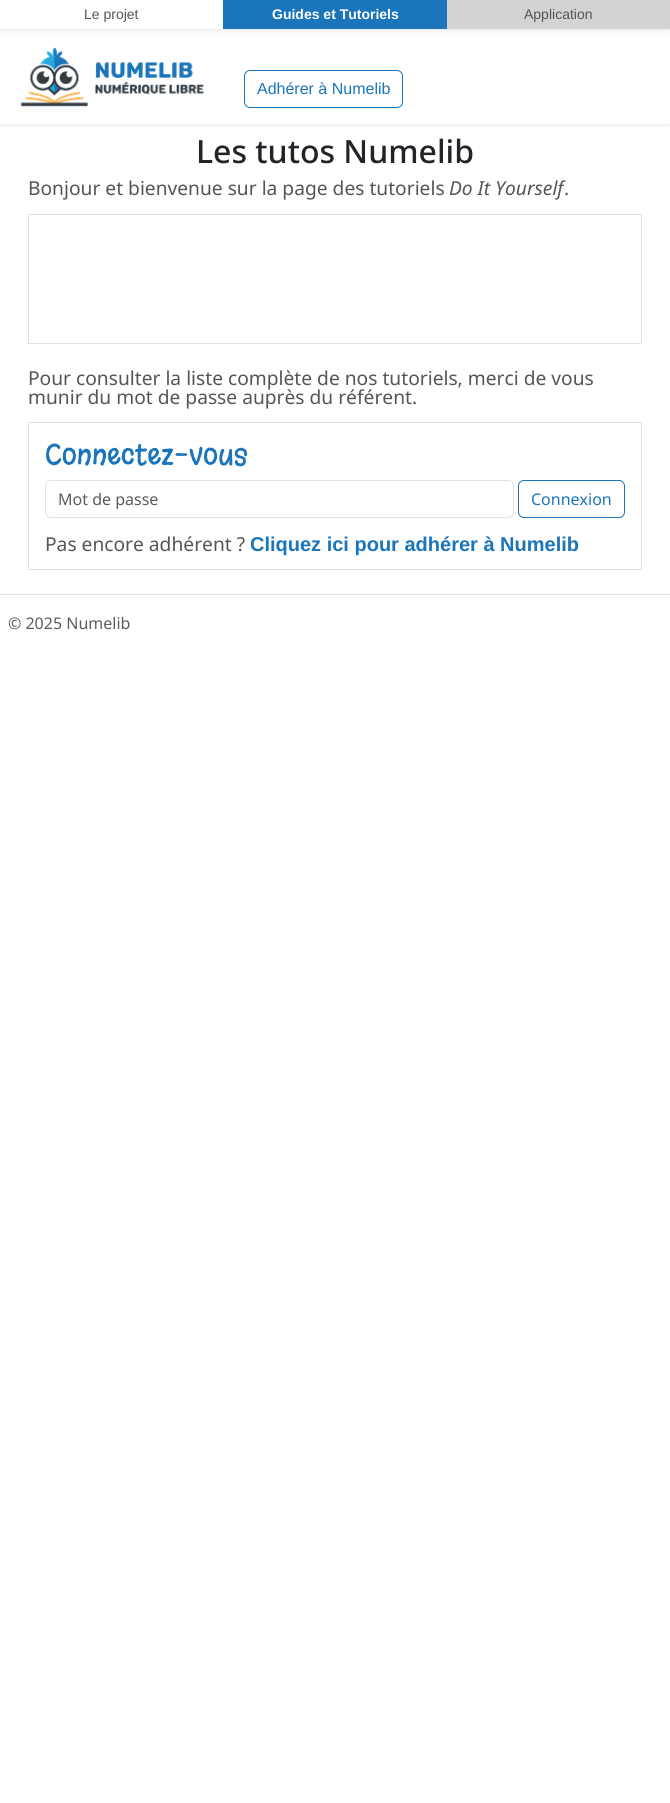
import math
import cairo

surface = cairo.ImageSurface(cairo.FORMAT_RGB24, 670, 1803)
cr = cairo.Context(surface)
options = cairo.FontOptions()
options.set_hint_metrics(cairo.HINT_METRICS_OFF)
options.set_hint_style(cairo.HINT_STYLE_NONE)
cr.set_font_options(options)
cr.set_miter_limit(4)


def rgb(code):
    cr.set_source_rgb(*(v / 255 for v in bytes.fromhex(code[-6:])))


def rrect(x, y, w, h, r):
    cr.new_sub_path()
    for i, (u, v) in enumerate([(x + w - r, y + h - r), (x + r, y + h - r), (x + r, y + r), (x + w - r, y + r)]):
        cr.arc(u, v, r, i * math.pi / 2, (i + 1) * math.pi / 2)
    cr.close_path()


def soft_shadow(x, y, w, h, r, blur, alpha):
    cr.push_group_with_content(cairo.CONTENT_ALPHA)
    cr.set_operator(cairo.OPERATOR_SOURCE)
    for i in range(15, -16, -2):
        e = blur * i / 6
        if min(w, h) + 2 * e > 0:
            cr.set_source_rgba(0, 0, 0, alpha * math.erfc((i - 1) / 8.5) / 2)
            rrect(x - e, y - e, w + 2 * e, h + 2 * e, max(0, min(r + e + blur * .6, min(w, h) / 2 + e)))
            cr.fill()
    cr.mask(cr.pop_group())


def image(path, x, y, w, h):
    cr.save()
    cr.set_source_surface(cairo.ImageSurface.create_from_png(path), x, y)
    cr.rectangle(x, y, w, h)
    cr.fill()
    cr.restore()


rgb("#ffffff")
cr.paint()
cr.save()
cr.rectangle(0, 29, 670, 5)
cr.clip()
rgb("#d3d3d3")
soft_shadow(0, 0, 670, 29, 0, 2.5, 1)
cr.restore()
cr.save()
cr.rectangle(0, 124, 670, 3)
cr.clip()
rgb("#000000")
soft_shadow(0, 31, 670, 95, 0, 2, 0.07)
cr.restore()
rgb("#1a75bb")
cr.rectangle(223, 0, 224, 29)
cr.fill()
rgb("#d3d3d3")
cr.rectangle(447, 0, 223, 29)
cr.fill()
image("img/1.png", 20, 47, 185, 60)
rrect(244.5, 70.5, 158, 37, 5.5)
rgb("#1a75bb")
cr.set_line_width(1)
cr.stroke()
cr.rectangle(28.5, 214.5, 613, 129)
rgb("#dee2e6")
cr.stroke()
cr.rectangle(28.5, 422.5, 613, 147)
cr.stroke()
rrect(45.5, 480.5, 468, 37, 5.5)
cr.stroke()
rrect(518.5, 480.5, 106, 37, 5.5)
rgb("#1a75bb")
cr.stroke()
rgb("#dee2e6")
cr.rectangle(0, 594, 670, 1)
cr.fill()
cr.select_font_face("Liberation Sans")
cr.set_font_size(14)
rgb("#555555")
cr.move_to(84, 19)
cr.show_text("Le projet")
cr.select_font_face("Liberation Sans", cairo.FONT_SLANT_NORMAL, cairo.FONT_WEIGHT_BOLD)
rgb("#ffffff")
cr.move_to(272, 19)
cr.show_text("Guides et Tutoriels")
cr.select_font_face("Liberation Sans")
rgb("#555555")
cr.move_to(524, 19)
cr.show_text("Application")
cr.set_font_size(16)
rgb("#1a75bb")
cr.move_to(257, 94)
cr.show_text("Adhérer à Numelib")
cr.select_font_face("Noto Sans Medium")
cr.set_font_size(32)
rgb("#212529")
cr.move_to(196, 163)
cr.show_text("Les tutos Numelib")
cr.select_font_face("Noto Sans")
cr.set_font_size(19.2)
rgb("#555555")
cr.move_to(28, 195)
cr.show_text("Bonjour et bienvenue sur la page des tutoriels")
cr.select_font_face("Noto Sans", cairo.FONT_SLANT_ITALIC)
cr.move_to(449, 195)
cr.show_text("Do It Yourself")
cr.select_font_face("Noto Sans")
for x, y, s in [
    (564, 195, "."),
    (28, 385, "Pour consulter la liste complète de nos tutoriels, merci de vous"),
    (28, 404, "munir du mot de passe auprès du référent."),
]:
    cr.move_to(x, y)
    cr.show_text(s)
cr.select_font_face("Margarine")
cr.set_font_size(27.25)
rgb("#1a75bb")
cr.move_to(45, 464)
cr.show_text("Connectez-vous")
cr.select_font_face("Noto Sans")
cr.set_font_size(16)
rgb("#595c5f")
cr.move_to(58, 505)
cr.show_text("Mot de passe")
rgb("#1a75bb")
cr.move_to(531, 505)
cr.show_text("Connexion")
cr.set_font_size(19.2)
rgb("#555555")
cr.move_to(45, 551)
cr.show_text("Pas encore adhérent ?")
cr.select_font_face("Liberation Sans", cairo.FONT_SLANT_NORMAL, cairo.FONT_WEIGHT_BOLD)
cr.set_font_size(20)
rgb("#1a75bb")
cr.move_to(250, 551)
cr.show_text("Cliquez ici pour adhérer à Numelib")
cr.select_font_face("Noto Sans")
cr.set_font_size(16)
rgb("#595c5f")
cr.move_to(8, 629)
cr.show_text("© 2025 Numelib")
surface.write_to_png("page.png")
